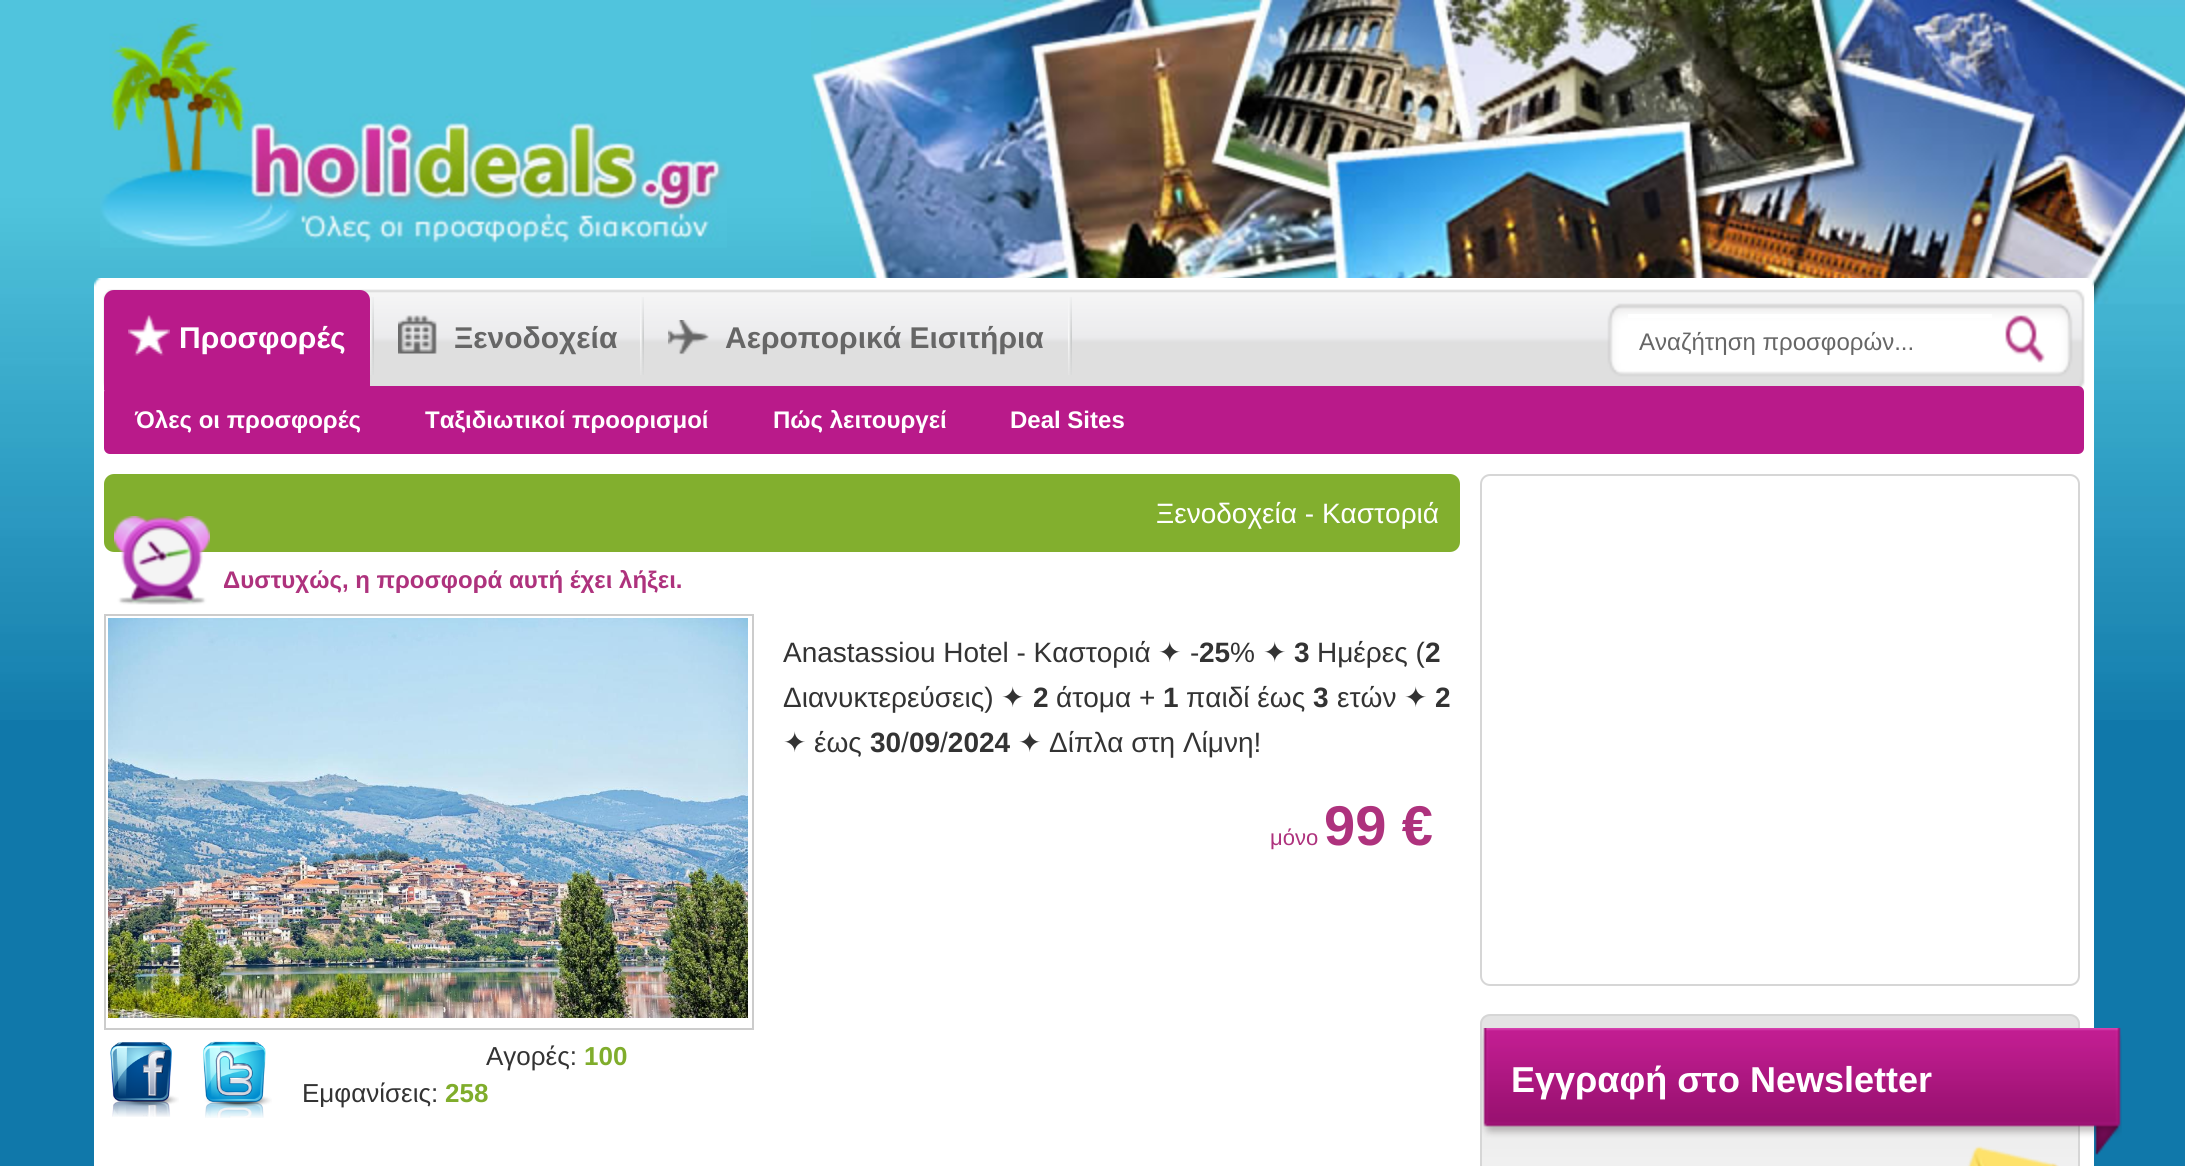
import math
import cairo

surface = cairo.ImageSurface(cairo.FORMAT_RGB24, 2185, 1166)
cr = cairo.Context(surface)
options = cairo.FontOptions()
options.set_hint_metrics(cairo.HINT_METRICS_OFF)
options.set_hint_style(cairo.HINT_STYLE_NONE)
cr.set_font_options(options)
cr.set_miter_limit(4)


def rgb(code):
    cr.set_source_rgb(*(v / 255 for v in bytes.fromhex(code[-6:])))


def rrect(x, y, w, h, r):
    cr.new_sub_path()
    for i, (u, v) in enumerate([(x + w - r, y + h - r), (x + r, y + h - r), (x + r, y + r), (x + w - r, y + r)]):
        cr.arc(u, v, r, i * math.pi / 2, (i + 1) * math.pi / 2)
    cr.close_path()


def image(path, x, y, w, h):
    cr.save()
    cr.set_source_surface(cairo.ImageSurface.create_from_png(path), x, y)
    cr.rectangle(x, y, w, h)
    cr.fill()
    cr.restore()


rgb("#1078aa")
cr.paint()
image("img/1.png", 0, 0, 2185, 720)
image("img/2.png", 100, 18, 627, 230)
image("img/3.png", 811, 0, 1374, 384)
image("img/4.png", 94, 278, 2000, 118)
rgb("#b91a8a")
cr.new_path()
cr.move_to(114, 290)
cr.line_to(360, 290)
cr.curve_to(365.5, 290, 370, 294.5, 370, 300)
cr.line_to(370, 390)
cr.line_to(104, 390)
cr.line_to(104, 300)
cr.curve_to(104, 294.5, 108.5, 290, 114, 290)
cr.close_path()
cr.fill()
image("img/5.png", 128, 315, 42, 41)
image("img/6.png", 370, 297, 4, 78)
image("img/7.png", 398, 315, 39, 39)
image("img/6.png", 640, 297, 4, 78)
image("img/8.png", 668, 320, 41, 35)
image("img/6.png", 1068, 297, 4, 78)
rgb("#ffffff")
cr.rectangle(1628, 314, 364, 4)
cr.fill()
cr.rectangle(94, 396, 2000, 770)
cr.fill()
rgb("#b91a8a")
rrect(104, 386, 1980, 68, 6)
cr.fill()
rgb("#82af2e")
rrect(104, 474, 1356, 78, 10)
cr.fill()
image("img/9.png", 114, 516, 96, 89)
cr.rectangle(105, 615, 648, 414)
rgb("#cccccc")
cr.stroke()
image("img/10.png", 108, 618, 640, 400)
image("img/11.png", 110, 1042, 69, 75)
image("img/12.png", 203, 1041, 69, 77)
rrect(1481, 475, 598, 510, 9)
rgb("#d6d6d6")
cr.stroke()
image("img/13.png", 1480, 1016, 600, 150)
rrect(1481, 1015, 598, 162, 9)
cr.stroke()
image("img/15.png", 1967, 1146, 92, 20)
image("img/14.png", 1482, 1028, 640, 127)
cr.select_font_face("Liberation Sans", cairo.FONT_SLANT_NORMAL, cairo.FONT_WEIGHT_BOLD)
cr.set_font_size(30)
rgb("#ffffff")
cr.move_to(179, 348)
cr.show_text("Προσφορές")
rgb("#666666")
cr.move_to(454, 348)
cr.show_text("Ξενοδοχεία")
cr.move_to(725, 348)
cr.show_text("Αεροπορικά Εισιτήρια")
cr.select_font_face("Liberation Sans")
cr.set_font_size(24)
cr.move_to(1639, 350)
cr.show_text("Αναζήτηση προσφορών...")
cr.select_font_face("Liberation Sans", cairo.FONT_SLANT_NORMAL, cairo.FONT_WEIGHT_BOLD)
rgb("#ffffff")
for x, y, s in [
    (135, 428, "Όλες οι προσφορές"),
    (425, 428, "Ταξιδιωτικοί προορισμοί"),
    (773, 428, "Πώς λειτουργεί"),
    (1010, 428, "Deal Sites"),
]:
    cr.move_to(x, y)
    cr.show_text(s)
cr.select_font_face("Liberation Sans")
cr.set_font_size(28)
cr.move_to(1156, 523)
cr.show_text("Ξενοδοχεία - Καστοριά")
cr.select_font_face("Liberation Sans", cairo.FONT_SLANT_NORMAL, cairo.FONT_WEIGHT_BOLD)
cr.set_font_size(24)
rgb("#ae327d")
cr.move_to(223, 588)
cr.show_text("Δυστυχώς, η προσφορά αυτή έχει λήξει.")
cr.select_font_face("Liberation Sans")
cr.set_font_size(28)
rgb("#333333")
cr.move_to(783, 662)
cr.show_text("Anastassiou Hotel - Καστοριά")
cr.select_font_face("DejaVu Sans")
cr.move_to(1158, 662)
cr.show_text("✦")
cr.select_font_face("Liberation Sans")
cr.move_to(1190, 662)
cr.show_text("-")
cr.select_font_face("Liberation Sans", cairo.FONT_SLANT_NORMAL, cairo.FONT_WEIGHT_BOLD)
cr.move_to(1199, 662)
cr.show_text("25")
cr.select_font_face("Liberation Sans")
cr.move_to(1230, 662)
cr.show_text("%")
cr.select_font_face("DejaVu Sans")
cr.move_to(1263, 662)
cr.show_text("✦")
cr.select_font_face("Liberation Sans", cairo.FONT_SLANT_NORMAL, cairo.FONT_WEIGHT_BOLD)
cr.move_to(1294, 662)
cr.show_text("3")
cr.select_font_face("Liberation Sans")
cr.move_to(1317, 662)
cr.show_text("Ημέρες (")
cr.select_font_face("Liberation Sans", cairo.FONT_SLANT_NORMAL, cairo.FONT_WEIGHT_BOLD)
cr.move_to(1425, 662)
cr.show_text("2")
cr.select_font_face("Liberation Sans")
cr.move_to(783, 707)
cr.show_text("Διανυκτερεύσεις)")
cr.select_font_face("DejaVu Sans")
cr.move_to(1001, 707)
cr.show_text("✦")
cr.select_font_face("Liberation Sans", cairo.FONT_SLANT_NORMAL, cairo.FONT_WEIGHT_BOLD)
cr.move_to(1033, 707)
cr.show_text("2")
cr.select_font_face("Liberation Sans")
cr.move_to(1056, 707)
cr.show_text("άτομα +")
cr.select_font_face("Liberation Sans", cairo.FONT_SLANT_NORMAL, cairo.FONT_WEIGHT_BOLD)
cr.move_to(1163, 707)
cr.show_text("1")
cr.select_font_face("Liberation Sans")
cr.move_to(1186, 707)
cr.show_text("παιδί έως")
cr.select_font_face("Liberation Sans", cairo.FONT_SLANT_NORMAL, cairo.FONT_WEIGHT_BOLD)
cr.move_to(1313, 707)
cr.show_text("3")
cr.select_font_face("Liberation Sans")
cr.move_to(1337, 707)
cr.show_text("ετών")
cr.select_font_face("DejaVu Sans")
cr.move_to(1404, 707)
cr.show_text("✦")
cr.select_font_face("Liberation Sans", cairo.FONT_SLANT_NORMAL, cairo.FONT_WEIGHT_BOLD)
cr.move_to(1435, 707)
cr.show_text("2")
cr.select_font_face("DejaVu Sans")
cr.move_to(783, 752)
cr.show_text("✦")
cr.select_font_face("Liberation Sans")
cr.move_to(814, 752)
cr.show_text("έως")
cr.select_font_face("DejaVu Sans")
cr.move_to(1018, 752)
cr.show_text("✦")
cr.select_font_face("Liberation Sans")
cr.move_to(1049, 752)
cr.show_text("Δίπλα στη Λίμνη!")
cr.select_font_face("Liberation Sans", cairo.FONT_SLANT_NORMAL, cairo.FONT_WEIGHT_BOLD)
cr.move_to(870, 752)
cr.show_text("30 09 2024")
cr.select_font_face("Liberation Sans")
cr.move_to(940, 752)
cr.show_text("/")
cr.move_to(901, 752)
cr.show_text("/")
cr.set_font_size(22)
rgb("#ae327d")
cr.move_to(1270, 845)
cr.show_text("μόνο")
cr.select_font_face("Liberation Sans", cairo.FONT_SLANT_NORMAL, cairo.FONT_WEIGHT_BOLD)
cr.set_font_size(56)
cr.move_to(1324, 845)
cr.show_text("99 €")
cr.select_font_face("Liberation Sans")
cr.set_font_size(26)
rgb("#333333")
cr.move_to(486, 1065)
cr.show_text("Αγορές:")
cr.select_font_face("Liberation Sans", cairo.FONT_SLANT_NORMAL, cairo.FONT_WEIGHT_BOLD)
rgb("#80ad2c")
cr.move_to(584, 1065)
cr.show_text("100")
cr.select_font_face("Liberation Sans")
rgb("#333333")
cr.move_to(302, 1102)
cr.show_text("Εμφανίσεις:")
cr.select_font_face("Liberation Sans", cairo.FONT_SLANT_NORMAL, cairo.FONT_WEIGHT_BOLD)
rgb("#80ad2c")
cr.move_to(445, 1102)
cr.show_text("258")
cr.set_font_size(36)
rgb("#ffffff")
cr.move_to(1511, 1092)
cr.show_text("Εγγραφή στο Newsletter")
surface.write_to_png("page.png")
